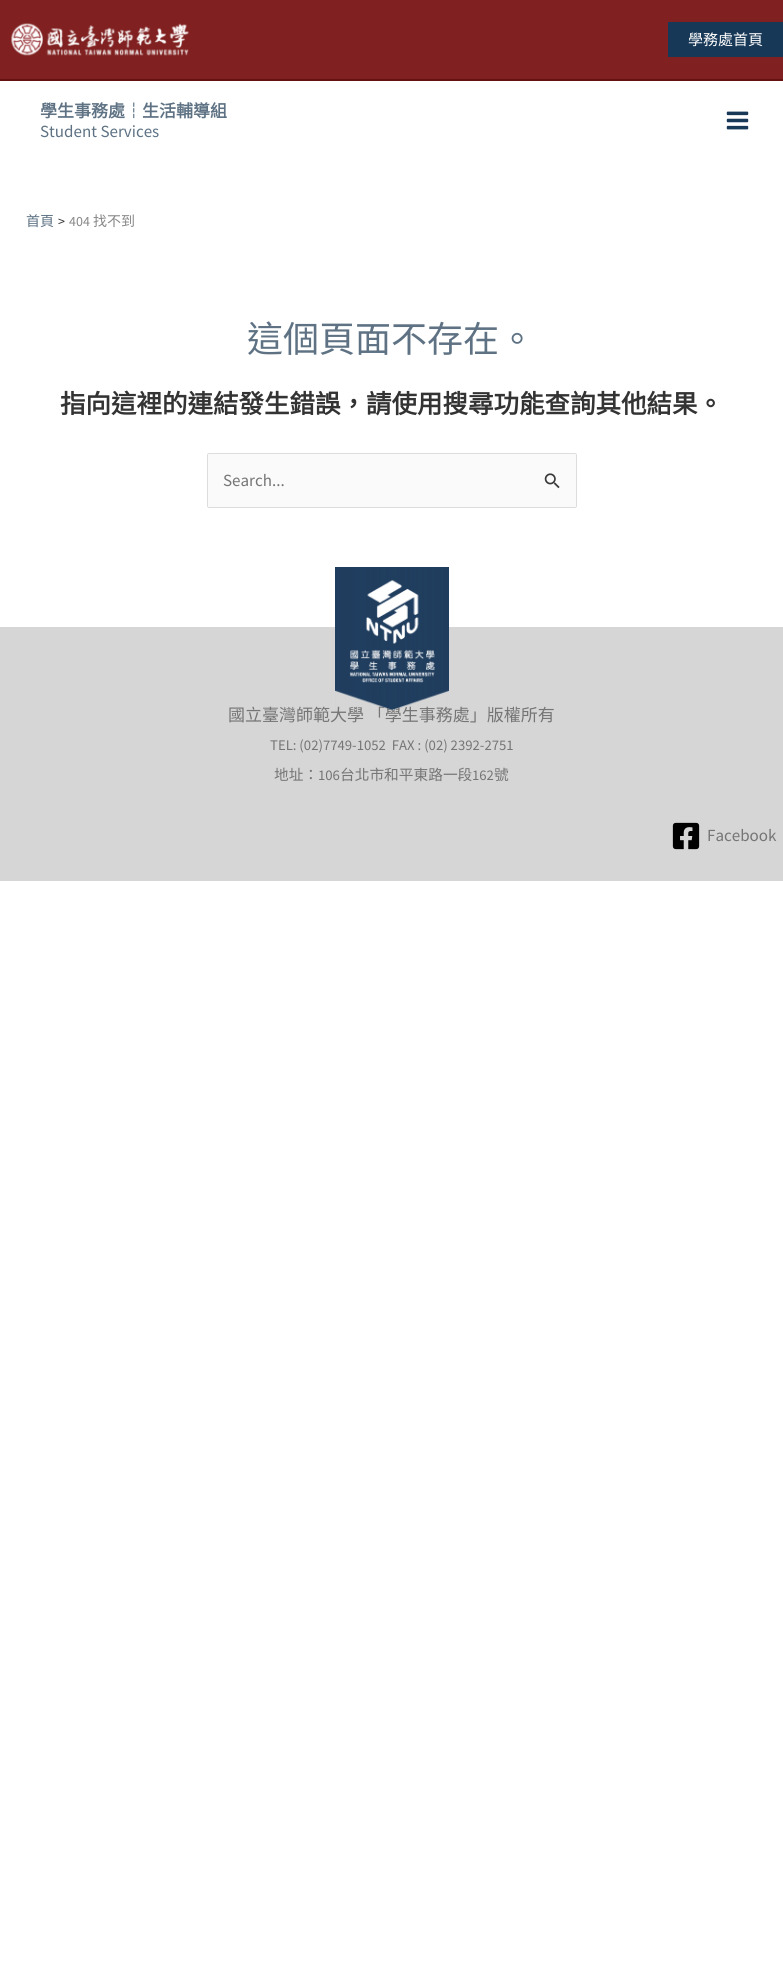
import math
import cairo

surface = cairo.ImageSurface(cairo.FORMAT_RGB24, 783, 1978)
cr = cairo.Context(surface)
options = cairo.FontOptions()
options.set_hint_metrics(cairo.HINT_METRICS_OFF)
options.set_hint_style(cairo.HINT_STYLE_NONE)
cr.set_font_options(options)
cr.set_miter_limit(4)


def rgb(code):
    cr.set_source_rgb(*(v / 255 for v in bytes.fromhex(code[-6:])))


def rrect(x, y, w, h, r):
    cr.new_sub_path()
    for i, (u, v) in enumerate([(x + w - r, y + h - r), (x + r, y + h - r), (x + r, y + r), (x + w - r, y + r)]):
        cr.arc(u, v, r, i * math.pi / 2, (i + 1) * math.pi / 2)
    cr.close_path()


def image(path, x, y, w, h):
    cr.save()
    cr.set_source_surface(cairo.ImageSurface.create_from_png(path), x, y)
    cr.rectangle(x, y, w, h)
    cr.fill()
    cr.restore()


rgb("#ffffff")
cr.paint()
rgb("#802020")
cr.rectangle(0, 0, 783, 79)
cr.fill()
rgb("#651111")
cr.rectangle(0, 79, 783, 2)
cr.fill()
image("img/1.png", 11, 23, 178, 33)
rgb("#173857")
cr.rectangle(668, 22, 115, 35)
cr.fill()
image("img/2.png", 726, 111, 23, 19)
rgb("#fafafa")
rrect(207.5, 453.5, 369, 54, 1.5)
cr.fill_preserve()
rgb("#dddddd")
cr.set_line_width(1)
cr.stroke()
image("img/3.png", 544, 473, 16, 16)
rgb("#d6d6d6")
cr.rectangle(0, 627, 783, 254)
cr.fill()
image("img/5.png", 672, 822, 28, 28)
cr.select_font_face("Noto Sans CJK TC")
cr.set_font_size(15)
rgb("#ffffff")
cr.move_to(688, 45)
cr.show_text("學務處首頁")
cr.select_font_face("Noto Sans CJK TC", cairo.FONT_SLANT_NORMAL, cairo.FONT_WEIGHT_BOLD)
cr.set_font_size(17)
rgb("#5e7284")
cr.move_to(40, 117)
cr.show_text("學生事務處┆生活輔導組")
cr.select_font_face("Source Sans Pro")
cr.move_to(40, 137)
cr.show_text("Student Services")
cr.select_font_face("Noto Sans CJK TC")
cr.set_font_size(14)
cr.move_to(26, 226)
cr.show_text("首頁")
cr.select_font_face("Source Sans Pro")
rgb("#333333")
cr.move_to(58, 226)
cr.show_text(">")
rgb("#878787")
cr.move_to(69, 226)
cr.show_text("404")
cr.select_font_face("Noto Sans CJK TC")
cr.move_to(93, 226)
cr.show_text("找不到")
cr.set_font_size(36)
rgb("#5e7284")
cr.move_to(247, 352)
cr.show_text("這個頁面不存在。")
cr.select_font_face("Noto Sans CJK TC", cairo.FONT_SLANT_NORMAL, cairo.FONT_WEIGHT_BOLD)
cr.set_font_size(25.5)
rgb("#333333")
cr.move_to(60, 413)
cr.show_text("指向這裡的連結發生錯誤，請使用搜尋功能查詢其他結果。")
cr.select_font_face("Source Sans Pro")
cr.set_font_size(17)
rgb("#757575")
cr.move_to(223, 486)
cr.show_text("Search...")
cr.select_font_face("Noto Sans CJK TC")
cr.move_to(228, 721)
cr.show_text("國立臺灣師範大學 「學生事務處」版權所有")
image("img/4.png", 335, 567, 114, 144)
cr.select_font_face("Source Sans Pro")
cr.set_font_size(14.7)
cr.move_to(270, 750)
cr.show_text("TEL: (02)7749-1052  FAX : (02) 2392-2751")
cr.select_font_face("Noto Sans CJK TC")
cr.move_to(274, 780)
cr.show_text("地址：")
cr.select_font_face("Source Sans Pro")
cr.move_to(318, 780)
cr.show_text("106")
cr.select_font_face("Noto Sans CJK TC")
cr.move_to(340, 780)
cr.show_text("台北市和平東路一段")
cr.select_font_face("Source Sans Pro")
cr.move_to(472, 780)
cr.show_text("162")
cr.select_font_face("Noto Sans CJK TC")
cr.move_to(494, 780)
cr.show_text("號")
cr.select_font_face("Source Sans Pro")
cr.set_font_size(17)
cr.move_to(707, 841)
cr.show_text("Facebook")
surface.write_to_png("page.png")
